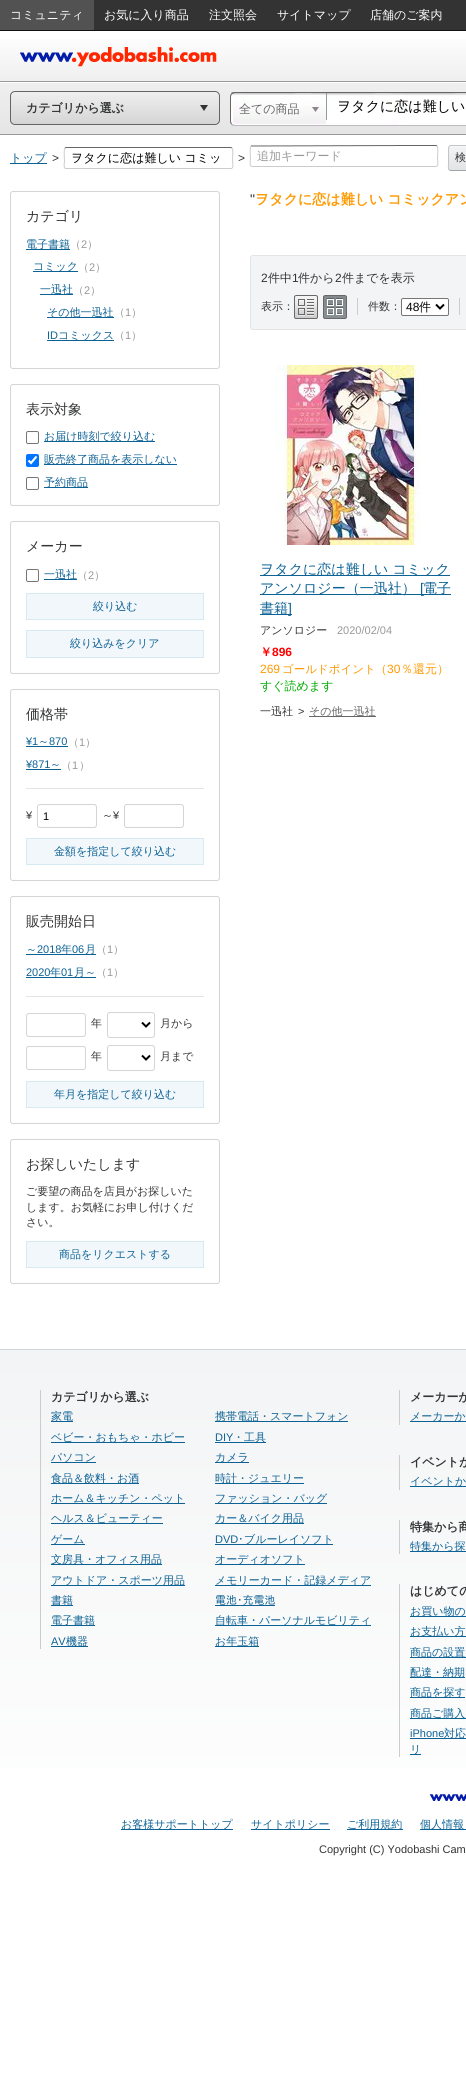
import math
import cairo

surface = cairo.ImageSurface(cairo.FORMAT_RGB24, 466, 2081)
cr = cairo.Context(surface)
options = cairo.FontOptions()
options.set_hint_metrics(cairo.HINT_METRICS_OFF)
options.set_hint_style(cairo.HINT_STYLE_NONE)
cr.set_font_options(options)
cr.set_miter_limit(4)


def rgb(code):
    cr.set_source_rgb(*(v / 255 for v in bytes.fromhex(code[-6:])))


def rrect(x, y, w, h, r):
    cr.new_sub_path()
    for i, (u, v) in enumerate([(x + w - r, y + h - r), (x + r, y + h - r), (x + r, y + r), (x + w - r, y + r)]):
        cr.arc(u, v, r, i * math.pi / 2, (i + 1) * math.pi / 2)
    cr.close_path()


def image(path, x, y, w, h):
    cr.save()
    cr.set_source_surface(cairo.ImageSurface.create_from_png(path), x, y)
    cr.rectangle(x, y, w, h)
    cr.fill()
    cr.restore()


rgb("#ffffff")
cr.paint()
for x, y, w, h, color in [
    (94, 0, 372, 30, "#333333"),
    (0, 30, 466, 1, "#111111"),
    (0, 0, 94, 30, "#525252"),
]:
    rgb(color)
    cr.rectangle(x, y, w, h)
    cr.fill()
gradient = cairo.LinearGradient(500, 31, 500, 81)
gradient.add_color_stop_rgba(0, 1, 1, 1, 1)
gradient.add_color_stop_rgba(1, 0.937, 0.937, 0.937, 1)
cr.set_source(gradient)
cr.rectangle(0, 39, 466, 42)
cr.fill()
rgb("#999999")
cr.rectangle(0, 81, 466, 1)
cr.fill()
image("img/1.png", 20, 47, 197, 20)
gradient = cairo.LinearGradient(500, 83, 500, 134)
gradient.add_color_stop_rgba(0, 0.937, 0.937, 0.937, 1)
gradient.add_color_stop_rgba(1, 0.898, 0.898, 0.898, 1)
cr.set_source(gradient)
cr.rectangle(0, 83, 466, 51)
cr.fill()
rgb("#999999")
cr.rectangle(0, 134, 466, 1)
cr.fill()
cr.save()
rrect(10, 91, 210, 34, 5)
cr.clip()
gradient = cairo.LinearGradient(115, 92, 115, 124)
gradient.add_color_stop_rgba(0, 0.937, 0.937, 0.937, 1)
gradient.add_color_stop_rgba(1, 0.835, 0.835, 0.835, 1)
cr.set_source(gradient)
cr.rectangle(10, 92, 210, 32)
cr.fill()
cr.restore()
rrect(10.5, 91.5, 209, 33, 4.5)
rgb("#656565")
cr.set_line_width(1)
cr.stroke()
rgb("#333333")
cr.new_path()
cr.move_to(200, 105)
cr.line_to(208, 105)
cr.line_to(204, 111)
cr.close_path()
cr.fill()
image("img/4.png", 230, 93, 236, 33)
image("img/2.png", 233, 95, 93, 29)
image("img/3.png", 312, 107, 7, 5)
rgb("#666666")
cr.new_path()
cr.move_to(235, 92)
cr.curve_to(234, 92, 232, 92, 231, 93)
cr.line_to(232, 94)
cr.curve_to(233, 94, 234, 93, 235, 93)
cr.line_to(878, 93)
cr.line_to(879, 92)
cr.close_path()
cr.fill()
rgb("#bbbbbb")
cr.new_path()
cr.move_to(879, 126)
cr.line_to(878, 125)
cr.line_to(235, 125)
cr.curve_to(234, 125, 233, 124, 232, 124)
cr.line_to(231, 125)
cr.curve_to(232, 126, 234, 126, 235, 126)
cr.close_path()
cr.fill()
rgb("#666666")
cr.new_path()
cr.move_to(230, 97)
cr.line_to(230, 121)
cr.curve_to(230, 122.5, 230.5, 124, 231.5, 124.5)
cr.line_to(232, 124)
cr.curve_to(231.5, 123, 231, 122, 231, 121)
cr.line_to(231, 97)
cr.curve_to(231, 96, 231.5, 95, 232, 94)
cr.line_to(231.5, 93.5)
cr.curve_to(230.5, 94, 230, 95.5, 230, 97)
cr.close_path()
cr.fill()
rgb("#999999")
cr.rectangle(326, 93, 1, 27)
cr.fill()
rgb("#0d6295")
cr.rectangle(10, 163, 37, 1)
cr.fill()
cr.new_path()
cr.move_to(65, 148)
cr.line_to(66, 147.5)
cr.line_to(231, 147.5)
cr.line_to(232, 148)
rgb("#666666")
cr.stroke()
cr.new_path()
cr.move_to(232, 148)
cr.curve_to(233.5, 149, 232.5, 159, 232.5, 161)
cr.curve_to(232.5, 162, 234, 168.5, 231, 168.5)
cr.line_to(66, 168.5)
cr.curve_to(63, 168.5, 64.5, 162, 64.5, 161)
cr.curve_to(64.5, 159, 63.5, 149, 65, 148)
rgb("#cccccc")
cr.stroke()
cr.new_path()
cr.move_to(251, 146)
cr.line_to(405.5, 145.5)
cr.line_to(436, 145.5)
cr.line_to(437, 146)
rgb("#666666")
cr.stroke()
cr.new_path()
cr.move_to(437, 146)
cr.curve_to(438.5, 147, 437.5, 157, 437.5, 159)
cr.curve_to(437.5, 160, 439, 166.5, 436, 166.5)
cr.line_to(252, 166.5)
cr.curve_to(249, 166.5, 250.5, 160, 250.5, 159)
cr.curve_to(250.5, 157, 249.5, 147, 251, 146)
rgb("#cccccc")
cr.stroke()
cr.save()
rrect(448, 145, 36, 26, 3)
cr.clip()
gradient = cairo.LinearGradient(466, 146, 466, 170)
gradient.add_color_stop_rgba(0, 0.953, 0.957, 0.961, 1)
gradient.add_color_stop_rgba(1, 0.89, 0.894, 0.898, 1)
cr.set_source(gradient)
cr.rectangle(448, 146, 18, 24)
cr.fill()
cr.restore()
cr.new_path()
cr.move_to(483, 170)
cr.curve_to(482.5, 170, 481.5, 170.5, 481, 170.5)
cr.line_to(451, 170.5)
cr.curve_to(450.5, 170.5, 449.5, 170, 449, 170)
rgb("#a3a4a5")
cr.stroke()
cr.new_path()
cr.move_to(449, 170)
cr.curve_to(448, 168.5, 448.5, 166, 448.5, 164.5)
cr.line_to(448.5, 151.5)
cr.curve_to(448.5, 144.5, 449, 145.5, 456, 145.5)
cr.line_to(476, 145.5)
cr.curve_to(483, 145.5, 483.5, 144.5, 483.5, 151.5)
cr.line_to(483.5, 164.5)
cr.curve_to(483.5, 166, 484, 168.5, 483, 170)
rgb("#c3c4c5")
cr.stroke()
cr.set_source_rgba(1, 1, 1, 0.3)
cr.new_path()
cr.move_to(452, 147)
cr.line_to(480, 147)
cr.curve_to(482, 147, 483, 148, 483, 150)
cr.curve_to(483, 145, 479.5, 146, 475.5, 146)
cr.line_to(456.5, 146)
cr.curve_to(452.5, 146, 449, 145, 449, 150)
cr.curve_to(449, 148, 450, 147, 452, 147)
cr.close_path()
cr.fill()
rrect(10.5, 191.5, 209, 177, 2.5)
rgb("#d3d4d5")
cr.stroke()
for x, y, w, h, color in [
    (26, 249, 44, 1, "#0d6295"),
    (33, 271, 45, 1, "#0d6295"),
    (40, 294, 33, 1, "#0d6295"),
    (47, 317, 67, 1, "#0d6295"),
    (47, 340, 67, 1, "#0d6295"),
]:
    rgb(color)
    cr.rectangle(x, y, w, h)
    cr.fill()
rrect(10.5, 384.5, 209, 121, 2.5)
rgb("#d3d4d5")
cr.stroke()
rrect(26.5, 431.5, 12, 12, 1.5)
rgb("#767676")
cr.stroke()
rgb("#0d6295")
cr.rectangle(44, 441, 111, 1)
cr.fill()
rgb("#0075ff")
rrect(26, 454, 13, 13, 2)
cr.fill()
cr.new_path()
cr.move_to(28.5, 460.5)
cr.line_to(31, 463)
cr.line_to(36.5, 456.5)
rgb("#ffffff")
cr.set_line_width(2.1)
cr.stroke()
rgb("#0d6295")
cr.rectangle(44, 464, 133, 1)
cr.fill()
rrect(26.5, 477.5, 12, 12, 1.5)
rgb("#767676")
cr.set_line_width(1)
cr.stroke()
rgb("#0d6295")
cr.rectangle(44, 487, 44, 1)
cr.fill()
rrect(10.5, 521.5, 209, 152, 2.5)
rgb("#d3d4d5")
cr.stroke()
rrect(26.5, 569.5, 12, 12, 1.5)
rgb("#767676")
cr.stroke()
rgb("#0d6295")
cr.rectangle(44, 579, 33, 1)
cr.fill()
rgb("#f2f7fb")
cr.rectangle(26.5, 593.5, 177, 26)
cr.fill_preserve()
rgb("#d7e9f1")
cr.stroke()
rgb("#f2f7fb")
cr.rectangle(26.5, 630.5, 177, 27)
cr.fill_preserve()
rgb("#d7e9f1")
cr.stroke()
rrect(10.5, 689.5, 209, 191, 2.5)
rgb("#d3d4d5")
cr.stroke()
for x, y, w, h, color in [
    (26, 746, 42, 1, "#0d6295"),
    (26, 769, 35, 1, "#0d6295"),
    (26, 788, 178, 1, "#e3e4e5"),
]:
    rgb(color)
    cr.rectangle(x, y, w, h)
    cr.fill()
rrect(37.5, 804.5, 59, 23, 2.5)
rgb("#d3d4d5")
cr.stroke()
rrect(124.5, 804.5, 59, 23, 2.5)
cr.stroke()
rgb("#f2f7fb")
cr.rectangle(26.5, 838.5, 177, 26)
cr.fill_preserve()
rgb("#d7e9f1")
cr.stroke()
rrect(10.5, 896.5, 209, 227, 2.5)
rgb("#d3d4d5")
cr.stroke()
for x, y, w, h, color in [
    (26, 954, 70, 1, "#0d6295"),
    (26, 977, 70, 1, "#0d6295"),
    (26, 996, 178, 1, "#e3e4e5"),
]:
    rgb(color)
    cr.rectangle(x, y, w, h)
    cr.fill()
rrect(26.5, 1013.5, 59, 23, 2.5)
rgb("#d3d4d5")
cr.stroke()
rrect(107.5, 1012.5, 47, 25, 2.5)
cr.stroke()
cr.new_path()
cr.move_to(142, 1022.5)
cr.line_to(146, 1026.5)
cr.line_to(150, 1022.5)
rgb("#000000")
cr.set_line_width(2)
cr.stroke()
rrect(26.5, 1046.5, 59, 23, 2.5)
rgb("#d3d4d5")
cr.set_line_width(1)
cr.stroke()
rrect(107.5, 1045.5, 47, 25, 2.5)
cr.stroke()
cr.new_path()
cr.move_to(142, 1055.5)
cr.line_to(146, 1059.5)
cr.line_to(150, 1055.5)
rgb("#000000")
cr.set_line_width(2)
cr.stroke()
rgb("#f2f7fb")
cr.rectangle(26.5, 1081.5, 177, 26)
cr.fill_preserve()
rgb("#d7e9f1")
cr.set_line_width(1)
cr.stroke()
rrect(10.5, 1139.5, 209, 144, 2.5)
rgb("#d3d4d5")
cr.stroke()
rgb("#f2f7fb")
cr.rectangle(26.5, 1241.5, 177, 26)
cr.fill_preserve()
rgb("#d7e9f1")
cr.stroke()
rgb("#f3f4f5")
rrect(250.5, 255.5, 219, 74, 2.5)
cr.fill_preserve()
rgb("#e3e4e5")
cr.stroke()
image("img/5.png", 294, 295, 24, 24)
image("img/6.png", 323, 295, 24, 24)
rgb("#cccccc")
cr.rectangle(357, 298, 1, 17)
cr.fill()
rgb("#ffffff")
rrect(401.5, 298.5, 47, 17, 1.5)
cr.fill_preserve()
rgb("#767676")
cr.stroke()
cr.new_path()
cr.move_to(436, 304.5)
cr.line_to(440, 308.5)
cr.line_to(444, 304.5)
rgb("#000000")
cr.set_line_width(2)
cr.stroke()
rgb("#cccccc")
cr.rectangle(459, 298, 1, 17)
cr.fill()
image("img/7.png", 276, 365, 144, 180)
for x, y, w, h, color in [
    (260, 575, 190, 1, "#0d6295"),
    (260, 594, 191, 1, "#0d6295"),
    (260, 614, 32, 1, "#0d6295"),
    (309, 716, 67, 1, "#666666"),
]:
    rgb(color)
    cr.rectangle(x, y, w, h)
    cr.fill()
gradient = cairo.LinearGradient(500, 1350, 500, 1878)
gradient.add_color_stop_rgba(0, 0.953, 0.957, 0.961, 1)
gradient.add_color_stop_rgba(1, 1, 1, 1, 1)
cr.set_source(gradient)
cr.rectangle(0, 1350, 466, 418)
cr.fill()
for x, y, w, h, color in [
    (0, 1349, 466, 1, "#d3d4d5"),
    (40, 1390, 1, 259, "#cccccc"),
    (51, 1421, 22, 1, "#0d6295"),
    (51, 1442, 134, 1, "#0d6295"),
    (51, 1462, 45, 1, "#0d6295"),
    (51, 1483, 88, 1, "#0d6295"),
    (51, 1503, 134, 1, "#0d6295"),
    (51, 1523, 112, 1, "#0d6295"),
    (51, 1544, 34, 1, "#0d6295"),
    (51, 1564, 111, 1, "#0d6295"),
    (51, 1585, 134, 1, "#0d6295"),
    (51, 1605, 22, 1, "#0d6295"),
    (51, 1625, 44, 1, "#0d6295"),
    (51, 1646, 37, 1, "#0d6295"),
    (215, 1421, 133, 1, "#0d6295"),
    (215, 1442, 51, 1, "#0d6295"),
    (215, 1462, 34, 1, "#0d6295"),
    (215, 1483, 89, 1, "#0d6295"),
    (215, 1503, 112, 1, "#0d6295"),
    (215, 1523, 89, 1, "#0d6295"),
    (215, 1544, 118, 1, "#0d6295"),
    (215, 1564, 90, 1, "#0d6295"),
    (215, 1585, 156, 1, "#0d6295"),
    (215, 1605, 60, 1, "#0d6295"),
    (215, 1625, 156, 1, "#0d6295"),
    (215, 1646, 44, 1, "#0d6295"),
    (399, 1390, 1, 35, "#cccccc"),
    (410, 1421, 56, 1, "#0d6295"),
    (399, 1455, 1, 35, "#cccccc"),
    (410, 1486, 56, 1, "#0d6295"),
    (399, 1520, 1, 34, "#cccccc"),
    (410, 1551, 56, 1, "#0d6295"),
    (399, 1584, 1, 173, "#cccccc"),
    (410, 1616, 56, 1, "#0d6295"),
    (410, 1636, 56, 1, "#0d6295"),
    (410, 1657, 56, 1, "#0d6295"),
    (410, 1677, 55, 1, "#0d6295"),
    (410, 1697, 55, 1, "#0d6295"),
    (410, 1718, 56, 1, "#0d6295"),
    (410, 1738, 56, 1, "#0d6295"),
    (410, 1754, 11, 1, "#0d6295"),
]:
    rgb(color)
    cr.rectangle(x, y, w, h)
    cr.fill()
image("img/8.png", 430, 1794, 36, 7)
for x, y, w, h, color in [
    (121, 1829, 112, 1, "#0d6295"),
    (251, 1829, 79, 1, "#0d6295"),
    (347, 1829, 56, 1, "#0d6295"),
    (420, 1829, 46, 1, "#0d6295"),
]:
    rgb(color)
    cr.rectangle(x, y, w, h)
    cr.fill()
cr.select_font_face("WenQuanYi Zen Hei Medium")
cr.set_font_size(12)
rgb("#ffffff")
for x, y, s in [
    (10, 19, "コミュニティ"),
    (104, 19, "お気に入り商品"),
    (209, 19, "注文照会"),
    (277, 19, "サイトマップ"),
    (370, 19, "店舗のご案内"),
]:
    cr.move_to(x, y)
    cr.show_text(s)
cr.select_font_face("WenQuanYi Zen Hei", cairo.FONT_SLANT_NORMAL, cairo.FONT_WEIGHT_BOLD)
rgb("#333435")
cr.move_to(26, 112)
cr.show_text("カテゴリから選ぶ")
cr.select_font_face("WenQuanYi Zen Hei Medium")
rgb("#666666")
cr.move_to(239, 113)
cr.show_text("全ての商品")
cr.set_font_size(14)
rgb("#000000")
cr.move_to(337, 111)
cr.show_text("ヲタクに恋は難しい")
cr.set_font_size(12)
rgb("#0d6295")
cr.move_to(10, 162)
cr.show_text("トップ")
cr.select_font_face("Liberation Sans")
rgb("#333435")
cr.move_to(52, 162)
cr.show_text(">")
cr.select_font_face("WenQuanYi Zen Hei Medium")
rgb("#000000")
cr.move_to(71, 162)
cr.show_text("ヲタクに恋は難しい コミッ")
cr.select_font_face("Liberation Sans")
rgb("#333435")
cr.move_to(238, 162)
cr.show_text(">")
cr.select_font_face("WenQuanYi Zen Hei Medium")
rgb("#999999")
cr.move_to(257, 160)
cr.show_text("追加キーワード")
cr.set_font_size(11)
rgb("#333435")
cr.move_to(455, 161)
cr.show_text("検")
cr.set_font_size(14)
cr.move_to(26, 221)
cr.show_text("カテゴリ")
cr.set_font_size(11)
rgb("#0d6295")
cr.move_to(26, 248)
cr.show_text("電子書籍")
rgb("#999999")
cr.move_to(70, 248)
cr.show_text("（")
cr.select_font_face("Liberation Sans")
cr.move_to(81, 248)
cr.show_text("2")
cr.select_font_face("WenQuanYi Zen Hei Medium")
cr.move_to(87, 248)
cr.show_text("）")
rgb("#0d6295")
cr.move_to(33, 270)
cr.show_text("コミック")
rgb("#999999")
cr.move_to(78, 271)
cr.show_text("（")
cr.select_font_face("Liberation Sans")
cr.move_to(89, 271)
cr.show_text("2")
cr.select_font_face("WenQuanYi Zen Hei Medium")
cr.move_to(95, 271)
cr.show_text("）")
rgb("#0d6295")
cr.move_to(40, 293)
cr.show_text("一迅社")
rgb("#999999")
cr.move_to(73, 294)
cr.show_text("（")
cr.select_font_face("Liberation Sans")
cr.move_to(84, 294)
cr.show_text("2")
cr.select_font_face("WenQuanYi Zen Hei Medium")
cr.move_to(90, 294)
cr.show_text("）")
rgb("#0d6295")
cr.move_to(47, 316)
cr.show_text("その他一迅社")
rgb("#999999")
cr.move_to(114, 316)
cr.show_text("（")
cr.select_font_face("Liberation Sans")
cr.move_to(125, 316)
cr.show_text("1")
cr.select_font_face("WenQuanYi Zen Hei Medium")
cr.move_to(131, 316)
cr.show_text("）")
cr.select_font_face("Liberation Sans")
rgb("#0d6295")
cr.move_to(47, 339)
cr.show_text("ID")
cr.select_font_face("WenQuanYi Zen Hei Medium")
cr.move_to(58, 339)
cr.show_text("コミックス")
rgb("#999999")
cr.move_to(114, 339)
cr.show_text("（")
cr.select_font_face("Liberation Sans")
cr.move_to(125, 339)
cr.show_text("1")
cr.select_font_face("WenQuanYi Zen Hei Medium")
cr.move_to(131, 339)
cr.show_text("）")
cr.set_font_size(14)
rgb("#333435")
cr.move_to(26, 414)
cr.show_text("表示対象")
cr.set_font_size(11)
rgb("#0d6295")
for x, y, s in [
    (44, 440, "お届け時刻で絞り込む"),
    (44, 463, "販売終了商品を表示しない"),
    (44, 486, "予約商品"),
]:
    cr.move_to(x, y)
    cr.show_text(s)
cr.set_font_size(14)
rgb("#333435")
cr.move_to(26, 551)
cr.show_text("メーカー")
cr.set_font_size(11)
rgb("#0d6295")
cr.move_to(44, 578)
cr.show_text("一迅社")
rgb("#999999")
cr.move_to(77, 579)
cr.show_text("（")
cr.select_font_face("Liberation Sans")
cr.move_to(88, 579)
cr.show_text("2")
cr.select_font_face("WenQuanYi Zen Hei Medium")
cr.move_to(94, 579)
cr.show_text("）")
rgb("#0d6295")
cr.move_to(93, 610)
cr.show_text("絞り込む")
cr.move_to(70, 647)
cr.show_text("絞り込みをクリア")
cr.set_font_size(14)
rgb("#333435")
cr.move_to(26, 719)
cr.show_text("価格帯")
cr.select_font_face("Liberation Sans")
cr.set_font_size(11)
rgb("#0d6295")
cr.move_to(26, 745)
cr.show_text("¥1")
cr.select_font_face("WenQuanYi Zen Hei Medium")
cr.move_to(38, 745)
cr.show_text("～")
cr.select_font_face("Liberation Sans")
cr.move_to(49, 745)
cr.show_text("870")
cr.select_font_face("WenQuanYi Zen Hei Medium")
rgb("#999999")
cr.move_to(68, 746)
cr.show_text("（")
cr.select_font_face("Liberation Sans")
cr.move_to(79, 746)
cr.show_text("1")
cr.select_font_face("WenQuanYi Zen Hei Medium")
cr.move_to(85, 746)
cr.show_text("）")
cr.select_font_face("Liberation Sans")
rgb("#0d6295")
cr.move_to(26, 768)
cr.show_text("¥871")
cr.select_font_face("WenQuanYi Zen Hei Medium")
cr.move_to(50, 768)
cr.show_text("～")
rgb("#999999")
cr.move_to(61, 769)
cr.show_text("（")
cr.select_font_face("Liberation Sans")
cr.move_to(72, 769)
cr.show_text("1")
cr.select_font_face("WenQuanYi Zen Hei Medium")
cr.move_to(79, 769)
cr.show_text("）")
cr.select_font_face("Liberation Sans")
rgb("#333435")
cr.move_to(26, 819)
cr.show_text("¥")
rgb("#000000")
cr.move_to(43, 820)
cr.show_text("1")
cr.select_font_face("WenQuanYi Zen Hei Medium")
rgb("#333435")
cr.move_to(102, 819)
cr.show_text("～")
cr.select_font_face("Liberation Sans")
cr.move_to(113, 819)
cr.show_text("¥")
cr.select_font_face("WenQuanYi Zen Hei Medium")
rgb("#0d6295")
cr.move_to(54, 855)
cr.show_text("金額を指定して絞り込む")
cr.set_font_size(14)
rgb("#333435")
cr.move_to(26, 926)
cr.show_text("販売開始日")
cr.set_font_size(11)
rgb("#0d6295")
cr.move_to(26, 953)
cr.show_text("～")
cr.select_font_face("Liberation Sans")
cr.move_to(37, 953)
cr.show_text("2018")
cr.select_font_face("WenQuanYi Zen Hei Medium")
cr.move_to(61, 953)
cr.show_text("年")
cr.select_font_face("Liberation Sans")
cr.move_to(72, 953)
cr.show_text("06")
cr.select_font_face("WenQuanYi Zen Hei Medium")
cr.move_to(85, 953)
cr.show_text("月")
rgb("#999999")
cr.move_to(96, 953)
cr.show_text("（")
cr.select_font_face("Liberation Sans")
cr.move_to(107, 953)
cr.show_text("1")
cr.select_font_face("WenQuanYi Zen Hei Medium")
cr.move_to(113, 953)
cr.show_text("）")
cr.select_font_face("Liberation Sans")
rgb("#0d6295")
cr.move_to(26, 976)
cr.show_text("2020")
cr.select_font_face("WenQuanYi Zen Hei Medium")
cr.move_to(50, 976)
cr.show_text("年")
cr.select_font_face("Liberation Sans")
cr.move_to(61, 976)
cr.show_text("01")
cr.select_font_face("WenQuanYi Zen Hei Medium")
cr.move_to(74, 976)
cr.show_text("月～")
rgb("#999999")
cr.move_to(96, 976)
cr.show_text("（")
cr.select_font_face("Liberation Sans")
cr.move_to(107, 976)
cr.show_text("1")
cr.select_font_face("WenQuanYi Zen Hei Medium")
cr.move_to(113, 976)
cr.show_text("）")
rgb("#333435")
for x, y, s in [
    (91, 1027, "年"),
    (160, 1027, "月から"),
    (91, 1060, "年"),
    (160, 1060, "月まで"),
]:
    cr.move_to(x, y)
    cr.show_text(s)
rgb("#0d6295")
cr.move_to(54, 1098)
cr.show_text("年月を指定して絞り込む")
cr.set_font_size(14)
rgb("#333435")
cr.move_to(26, 1169)
cr.show_text("お探しいたします")
cr.set_font_size(11)
for x, y, s in [
    (26, 1195, "ご要望の商品を店員がお探しいた"),
    (26, 1211, "します。お気軽にお申し付けくだ"),
    (26, 1226, "さい。"),
]:
    cr.move_to(x, y)
    cr.show_text(s)
rgb("#0d6295")
cr.move_to(59, 1258)
cr.show_text("商品をリクエストする")
cr.select_font_face("Liberation Sans")
cr.set_font_size(14)
rgb("#333435")
cr.move_to(250, 204)
cr.show_text("\"")
cr.select_font_face("WenQuanYi Zen Hei", cairo.FONT_SLANT_NORMAL, cairo.FONT_WEIGHT_BOLD)
rgb("#ff9900")
cr.move_to(255, 204)
cr.show_text("ヲタクに恋は難しい コミックアン")
cr.select_font_face("Liberation Sans")
cr.set_font_size(12)
rgb("#333435")
cr.move_to(261, 282)
cr.show_text("2")
cr.select_font_face("WenQuanYi Zen Hei Medium")
cr.move_to(268, 282)
cr.show_text("件中")
cr.select_font_face("Liberation Sans")
cr.move_to(292, 282)
cr.show_text("1")
cr.select_font_face("WenQuanYi Zen Hei Medium")
cr.move_to(298, 282)
cr.show_text("件から")
cr.select_font_face("Liberation Sans")
cr.move_to(335, 282)
cr.show_text("2")
cr.select_font_face("WenQuanYi Zen Hei Medium")
cr.move_to(342, 282)
cr.show_text("件までを表示")
cr.set_font_size(11)
cr.move_to(261, 310)
cr.show_text("表示：")
cr.move_to(368, 310)
cr.show_text("件数：")
cr.select_font_face("Liberation Sans")
cr.set_font_size(12)
rgb("#000000")
cr.move_to(406, 311)
cr.show_text("48")
cr.select_font_face("WenQuanYi Zen Hei Medium")
cr.move_to(419, 311)
cr.show_text("件")
cr.set_font_size(14)
rgb("#0d6295")
cr.move_to(260, 574)
cr.show_text("ヲタクに恋は難しい コミック")
cr.move_to(260, 593)
cr.show_text("アンソロジー（一迅社）")
cr.select_font_face("Liberation Sans")
cr.move_to(420, 593)
cr.show_text("[")
cr.select_font_face("WenQuanYi Zen Hei Medium")
cr.move_to(423, 593)
cr.show_text("電子")
cr.move_to(260, 613)
cr.show_text("書籍")
cr.select_font_face("Liberation Sans")
cr.move_to(288, 613)
cr.show_text("]")
cr.select_font_face("WenQuanYi Zen Hei Medium")
cr.set_font_size(11)
rgb("#333435")
cr.move_to(260, 634)
cr.show_text("アンソロジー")
cr.select_font_face("Liberation Sans")
rgb("#999999")
cr.move_to(337, 634)
cr.show_text("2020/02/04")
cr.select_font_face("WenQuanYi Zen Hei", cairo.FONT_SLANT_NORMAL, cairo.FONT_WEIGHT_BOLD)
cr.set_font_size(12)
rgb("#ff0000")
cr.move_to(260, 656)
cr.show_text("￥")
cr.select_font_face("Liberation Sans", cairo.FONT_SLANT_NORMAL, cairo.FONT_WEIGHT_BOLD)
cr.move_to(272, 656)
cr.show_text("896")
cr.select_font_face("Liberation Sans")
rgb("#ff9900")
cr.move_to(260, 673)
cr.show_text("269")
cr.select_font_face("WenQuanYi Zen Hei Medium")
cr.set_font_size(11.5)
cr.move_to(282, 673)
cr.show_text("ゴールドポイント")
cr.set_font_size(12)
cr.move_to(375, 673)
cr.show_text("（")
cr.select_font_face("Liberation Sans")
cr.move_to(387, 673)
cr.show_text("30")
cr.select_font_face("WenQuanYi Zen Hei Medium")
cr.move_to(401, 673)
cr.show_text("％還元）")
rgb("#00aa00")
cr.move_to(260, 690)
cr.show_text("すぐ読めます")
cr.set_font_size(11)
rgb("#333435")
cr.move_to(260, 715)
cr.show_text("一迅社")
cr.select_font_face("Liberation Sans")
cr.move_to(298, 715)
cr.show_text(">")
cr.select_font_face("WenQuanYi Zen Hei Medium")
rgb("#666666")
cr.move_to(309, 715)
cr.show_text("その他一迅社")
cr.select_font_face("WenQuanYi Zen Hei", cairo.FONT_SLANT_NORMAL, cairo.FONT_WEIGHT_BOLD)
cr.set_font_size(12)
rgb("#333435")
cr.move_to(51, 1401)
cr.show_text("カテゴリから選ぶ")
cr.select_font_face("WenQuanYi Zen Hei Medium")
cr.set_font_size(11)
rgb("#0d6295")
for x, y, s in [
    (51, 1420, "家電"),
    (51, 1441, "ベビー・おもちゃ・ホビー"),
    (51, 1461, "パソコン"),
    (51, 1482, "食品＆飲料・お酒"),
    (51, 1502, "ホーム＆キッチン・ペット"),
    (51, 1522, "ヘルス＆ビューティー"),
    (51, 1543, "ゲーム"),
    (51, 1563, "文房具・オフィス用品"),
    (51, 1584, "アウトドア・スポーツ用品"),
    (51, 1604, "書籍"),
    (51, 1624, "電子書籍"),
]:
    cr.move_to(x, y)
    cr.show_text(s)
cr.select_font_face("Liberation Sans")
cr.move_to(51, 1645)
cr.show_text("AV")
cr.select_font_face("WenQuanYi Zen Hei Medium")
cr.move_to(66, 1645)
cr.show_text("機器")
cr.move_to(215, 1420)
cr.show_text("携帯電話・スマートフォン")
cr.select_font_face("Liberation Sans")
cr.move_to(215, 1441)
cr.show_text("DIY")
cr.select_font_face("WenQuanYi Zen Hei Medium")
for x, y, s in [
    (233, 1441, "・工具"),
    (215, 1461, "カメラ"),
    (215, 1482, "時計・ジュエリー"),
    (215, 1502, "ファッション・バッグ"),
    (215, 1522, "カー＆バイク用品"),
]:
    cr.move_to(x, y)
    cr.show_text(s)
cr.select_font_face("Liberation Sans")
cr.move_to(215, 1543)
cr.show_text("DVD")
cr.select_font_face("IPAPGothic")
cr.move_to(238, 1543)
cr.show_text("･")
cr.select_font_face("WenQuanYi Zen Hei Medium")
for x, y, s in [
    (244, 1543, "ブルーレイソフト"),
    (215, 1563, "オーディオソフト"),
    (215, 1584, "メモリーカード・記録メディア"),
]:
    cr.move_to(x, y)
    cr.show_text(s)
cr.select_font_face("IPAPGothic")
cr.move_to(215, 1604)
cr.show_text("電池･充電池")
cr.select_font_face("WenQuanYi Zen Hei Medium")
cr.move_to(215, 1624)
cr.show_text("自転車・パーソナルモビリティ")
cr.move_to(215, 1645)
cr.show_text("お年玉箱")
cr.select_font_face("WenQuanYi Zen Hei", cairo.FONT_SLANT_NORMAL, cairo.FONT_WEIGHT_BOLD)
cr.set_font_size(12)
rgb("#333435")
cr.move_to(410, 1401)
cr.show_text("メーカーか")
cr.select_font_face("WenQuanYi Zen Hei Medium")
cr.set_font_size(11)
rgb("#0d6295")
cr.move_to(410, 1420)
cr.show_text("メーカーか")
cr.select_font_face("WenQuanYi Zen Hei", cairo.FONT_SLANT_NORMAL, cairo.FONT_WEIGHT_BOLD)
cr.set_font_size(12)
rgb("#333435")
cr.move_to(410, 1466)
cr.show_text("イベントか")
cr.select_font_face("WenQuanYi Zen Hei Medium")
cr.set_font_size(11)
rgb("#0d6295")
cr.move_to(410, 1485)
cr.show_text("イベントか")
cr.select_font_face("WenQuanYi Zen Hei", cairo.FONT_SLANT_NORMAL, cairo.FONT_WEIGHT_BOLD)
cr.set_font_size(12)
rgb("#333435")
cr.move_to(410, 1531)
cr.show_text("特集から商")
cr.select_font_face("WenQuanYi Zen Hei Medium")
cr.set_font_size(11)
rgb("#0d6295")
cr.move_to(410, 1550)
cr.show_text("特集から探")
cr.select_font_face("WenQuanYi Zen Hei", cairo.FONT_SLANT_NORMAL, cairo.FONT_WEIGHT_BOLD)
cr.set_font_size(12)
rgb("#333435")
cr.move_to(410, 1595)
cr.show_text("はじめての")
cr.select_font_face("WenQuanYi Zen Hei Medium")
cr.set_font_size(11)
rgb("#0d6295")
for x, y, s in [
    (410, 1615, "お買い物の"),
    (410, 1635, "お支払い方"),
    (410, 1656, "商品の設置"),
    (410, 1676, "配達・納期"),
    (410, 1696, "商品を探す"),
    (410, 1717, "商品ご購入"),
]:
    cr.move_to(x, y)
    cr.show_text(s)
cr.select_font_face("Liberation Sans")
cr.move_to(410, 1737)
cr.show_text("iPhone")
cr.select_font_face("WenQuanYi Zen Hei Medium")
for x, y, s in [
    (444, 1737, "対応"),
    (410, 1753, "リ"),
    (121, 1828, "お客様サポートトップ"),
    (251, 1828, "サイトポリシー"),
    (347, 1828, "ご利用規約"),
    (420, 1828, "個人情報"),
]:
    cr.move_to(x, y)
    cr.show_text(s)
cr.select_font_face("Liberation Sans")
rgb("#333435")
cr.move_to(319, 1853)
cr.show_text("Copyright (C) Yodobashi Cam")
surface.write_to_png("page.png")
